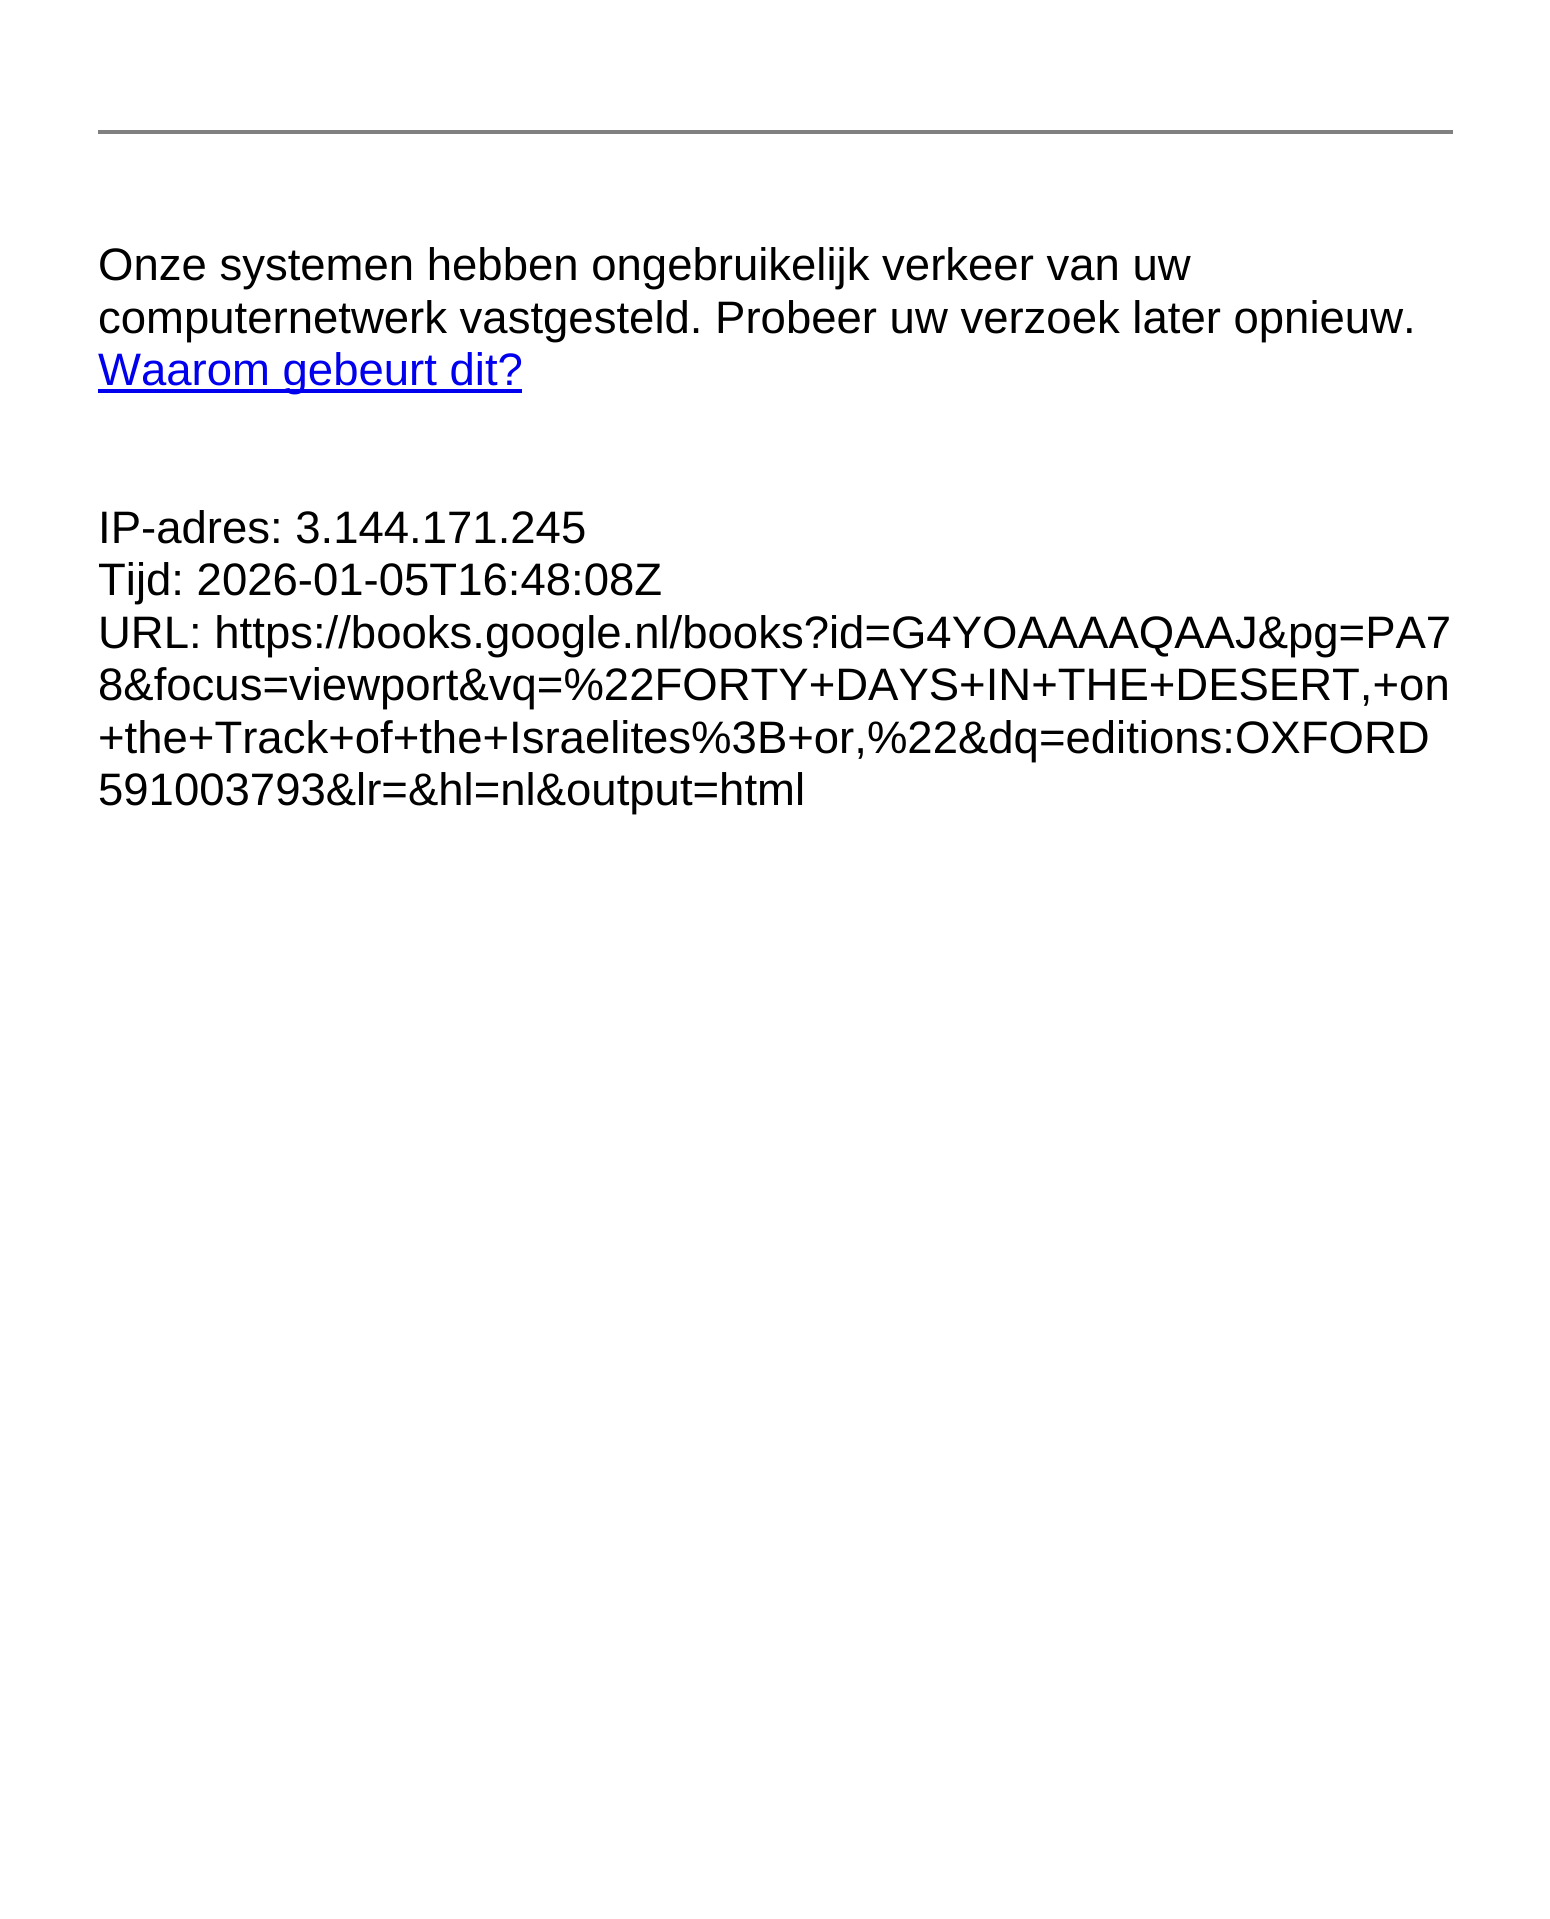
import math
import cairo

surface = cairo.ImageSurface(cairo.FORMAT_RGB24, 1550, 1919)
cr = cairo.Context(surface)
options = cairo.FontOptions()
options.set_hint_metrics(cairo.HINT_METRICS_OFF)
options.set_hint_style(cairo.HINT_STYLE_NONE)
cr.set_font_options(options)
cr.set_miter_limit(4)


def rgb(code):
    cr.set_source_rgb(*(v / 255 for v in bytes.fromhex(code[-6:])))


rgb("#ffffff")
cr.paint()
rgb("#808080")
cr.rectangle(98, 130, 1355, 4)
cr.fill()
rgb("#0000ee")
cr.rectangle(98, 389, 424, 4)
cr.fill()
cr.select_font_face("Liberation Sans")
cr.set_font_size(45.5)
rgb("#000000")
cr.move_to(98, 280)
cr.show_text("Onze systemen hebben ongebruikelijk verkeer van uw")
cr.move_to(98, 333)
cr.show_text("computernetwerk vastgesteld. Probeer uw verzoek later opnieuw.")
rgb("#0000ee")
cr.move_to(98, 385)
cr.show_text("Waarom gebeurt dit?")
rgb("#000000")
for x, y, s in [
    (98, 543, "IP-adres: 3.144.171.245"),
    (98, 595, "Tijd: 2026-01-05T16:48:08Z"),
    (98, 648, "URL: https://books.google.nl/books?id=G4YOAAAAQAAJ&pg=PA7"),
    (98, 700, "8&focus=viewport&vq=%22FORTY+DAYS+IN+THE+DESERT,+on"),
    (98, 753, "+the+Track+of+the+Israelites%3B+or,%22&dq=editions:OXFORD"),
    (98, 805, "591003793&lr=&hl=nl&output=html"),
]:
    cr.move_to(x, y)
    cr.show_text(s)
surface.write_to_png("page.png")
